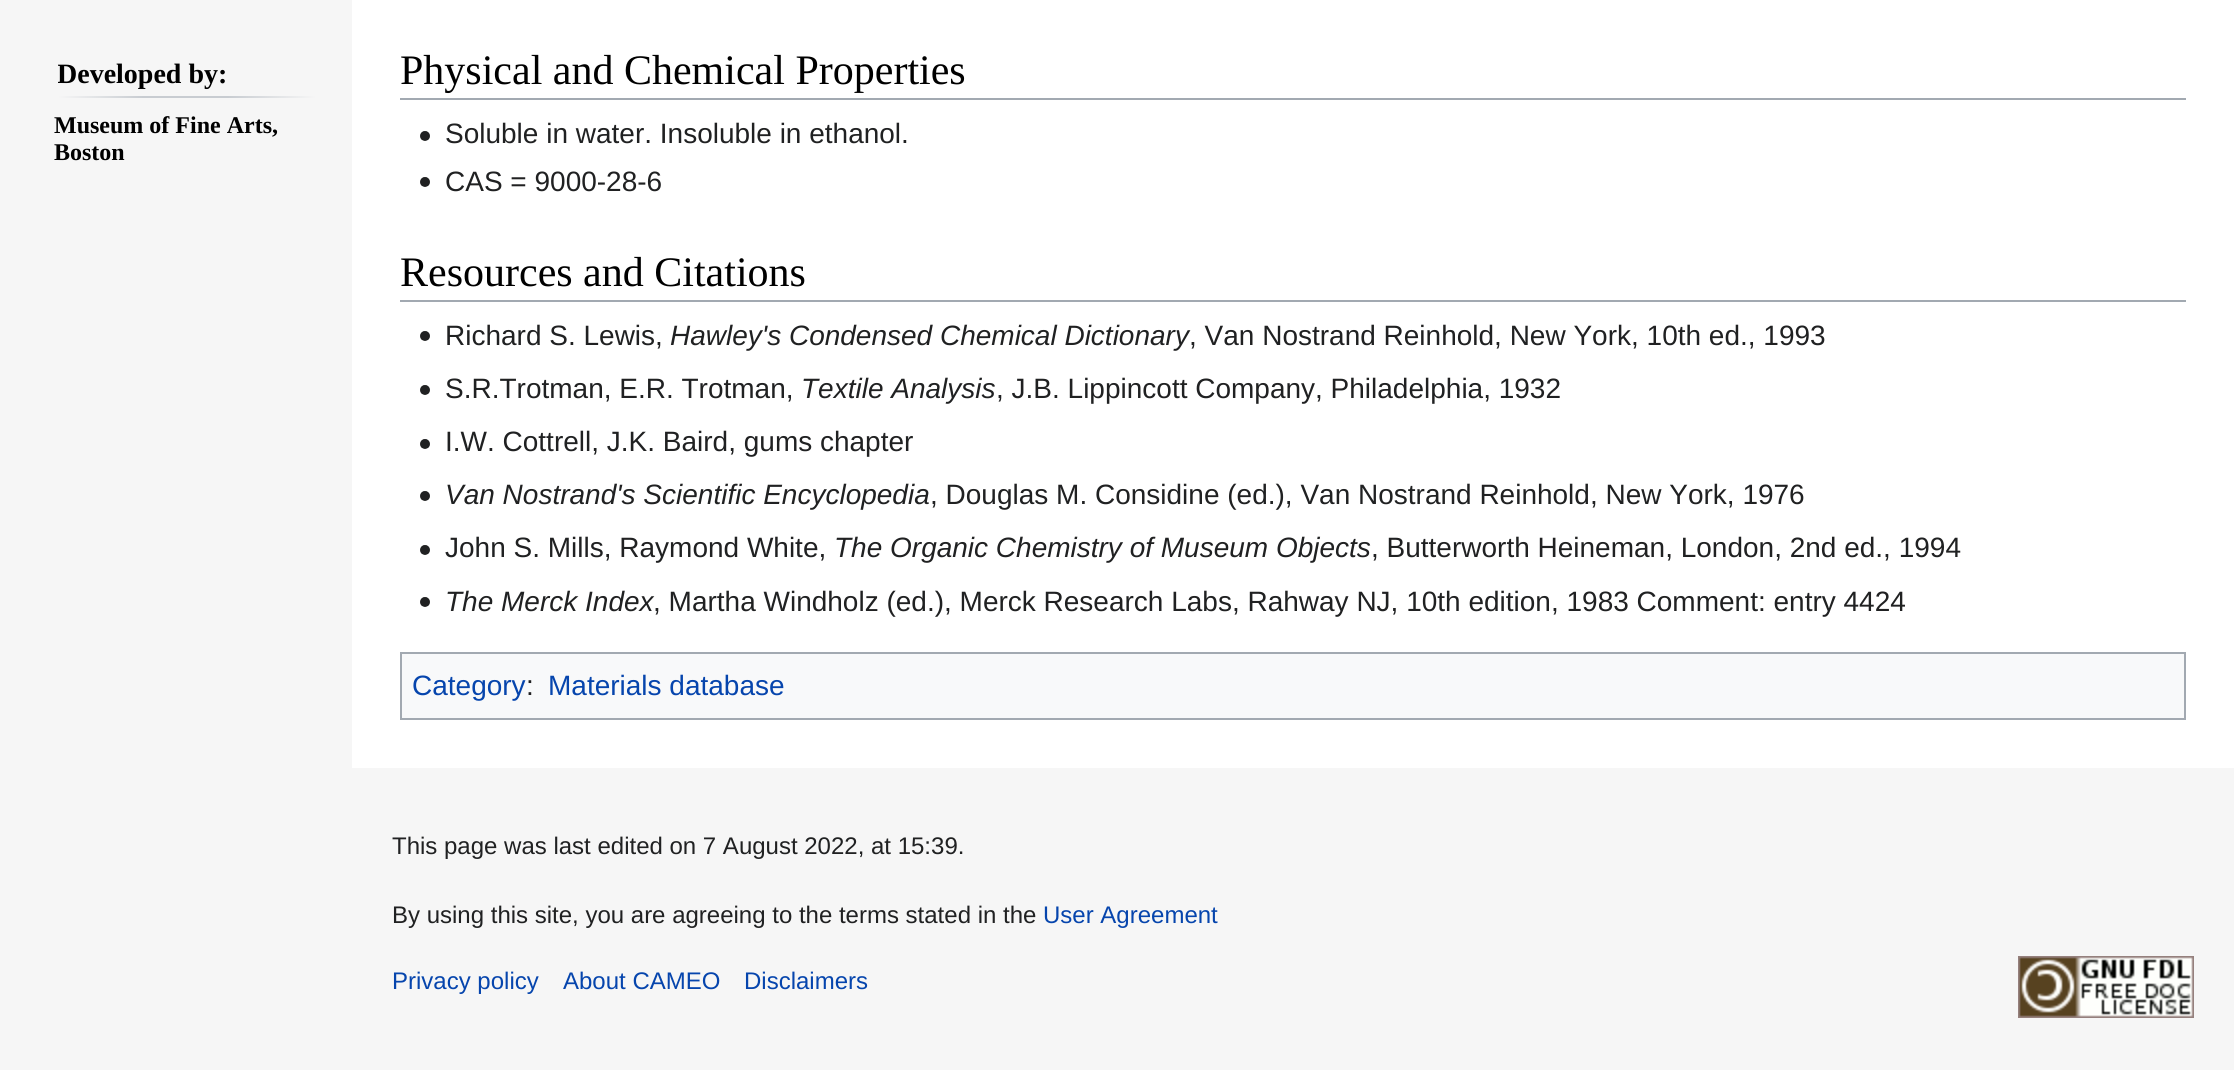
import math
import cairo

surface = cairo.ImageSurface(cairo.FORMAT_RGB24, 2234, 1070)
cr = cairo.Context(surface)
options = cairo.FontOptions()
options.set_hint_metrics(cairo.HINT_METRICS_OFF)
options.set_hint_style(cairo.HINT_STYLE_NONE)
cr.set_font_options(options)
cr.set_miter_limit(4)


def rgb(code):
    cr.set_source_rgb(*(v / 255 for v in bytes.fromhex(code[-6:])))


def image(path, x, y, w, h):
    cr.save()
    cr.set_source_surface(cairo.ImageSurface.create_from_png(path), x, y)
    cr.rectangle(x, y, w, h)
    cr.fill()
    cr.restore()


rgb("#f6f6f6")
cr.paint()
gradient = cairo.LinearGradient(58, 97, 316, 97)
gradient.add_color_stop_rgba(0, 0.965, 0.965, 0.965, 1)
gradient.add_color_stop_rgba(0.33, 0.784, 0.8, 0.82, 1)
gradient.add_color_stop_rgba(0.66, 0.784, 0.8, 0.82, 1)
gradient.add_color_stop_rgba(1, 0.965, 0.965, 0.965, 1)
cr.set_source(gradient)
cr.rectangle(58, 96, 258, 2)
cr.fill()
rgb("#ffffff")
cr.rectangle(352, 0, 1882, 768)
cr.fill()
rgb("#a2a9b1")
cr.rectangle(400, 98, 1786, 2)
cr.fill()
image("img/1.png", 420, 131, 10, 10)
image("img/1.png", 420, 177, 10, 10)
cr.rectangle(400, 300, 1786, 2)
cr.fill()
image("img/1.png", 420, 331, 10, 10)
image("img/1.png", 420, 385, 10, 10)
image("img/1.png", 420, 439, 10, 10)
image("img/1.png", 420, 491, 10, 10)
image("img/1.png", 420, 545, 10, 10)
image("img/1.png", 420, 597, 10, 10)
rgb("#f8f9fa")
cr.rectangle(401, 653, 1784, 66)
cr.fill_preserve()
rgb("#a2a9b1")
cr.stroke()
image("img/2.png", 2018, 956, 176, 62)
cr.save()
cr.rectangle(58, 52, 258, 46)
cr.clip()
cr.select_font_face("Liberation Serif", cairo.FONT_SLANT_NORMAL, cairo.FONT_WEIGHT_BOLD)
cr.set_font_size(28)
rgb("#000000")
cr.move_to(57, 83)
cr.show_text("Developed by:")
cr.restore()
cr.select_font_face("Liberation Serif", cairo.FONT_SLANT_NORMAL, cairo.FONT_WEIGHT_BOLD)
cr.set_font_size(24)
rgb("#000000")
cr.move_to(54, 133)
cr.show_text("Museum of Fine Arts,")
cr.move_to(54, 160)
cr.show_text("Boston")
cr.select_font_face("Liberation Serif")
cr.set_font_size(42)
cr.move_to(400, 84)
cr.show_text("Physical and Chemical Properties")
cr.select_font_face("Liberation Sans")
cr.set_font_size(28)
rgb("#202122")
cr.move_to(445, 143)
cr.show_text("Soluble in water. Insoluble in ethanol.")
cr.move_to(445, 191)
cr.show_text("CAS = 9000-28-6")
cr.select_font_face("Liberation Serif")
cr.set_font_size(42)
rgb("#000000")
cr.move_to(400, 286)
cr.show_text("Resources and Citations")
cr.select_font_face("Liberation Sans")
cr.set_font_size(28)
rgb("#202122")
cr.move_to(445, 345)
cr.show_text("Richard S. Lewis,")
cr.select_font_face("Liberation Sans", cairo.FONT_SLANT_ITALIC)
cr.move_to(670, 345)
cr.show_text("Hawley's Condensed Chemical Dictionary")
cr.select_font_face("Liberation Sans")
cr.move_to(1189, 345)
cr.show_text(", Van Nostrand Reinhold, New York, 10th ed., 1993")
cr.move_to(445, 398)
cr.show_text("S.R.Trotman, E.R. Trotman,")
cr.select_font_face("Liberation Sans", cairo.FONT_SLANT_ITALIC)
cr.move_to(801, 398)
cr.show_text("Textile Analysis")
cr.select_font_face("Liberation Sans")
cr.move_to(996, 398)
cr.show_text(", J.B. Lippincott Company, Philadelphia, 1932")
cr.move_to(445, 451)
cr.show_text("I.W. Cottrell, J.K. Baird, gums chapter")
cr.select_font_face("Liberation Sans", cairo.FONT_SLANT_ITALIC)
cr.move_to(445, 504)
cr.show_text("Van Nostrand's Scientific Encyclopedia")
cr.select_font_face("Liberation Sans")
cr.move_to(930, 504)
cr.show_text(", Douglas M. Considine (ed.), Van Nostrand Reinhold, New York, 1976")
cr.move_to(445, 557)
cr.show_text("John S. Mills, Raymond White,")
cr.select_font_face("Liberation Sans", cairo.FONT_SLANT_ITALIC)
cr.move_to(834, 557)
cr.show_text("The Organic Chemistry of Museum Objects")
cr.select_font_face("Liberation Sans")
cr.move_to(1371, 557)
cr.show_text(", Butterworth Heineman, London, 2nd ed., 1994")
cr.select_font_face("Liberation Sans", cairo.FONT_SLANT_ITALIC)
cr.move_to(445, 611)
cr.show_text("The Merck Index")
cr.select_font_face("Liberation Sans")
cr.move_to(653, 611)
cr.show_text(", Martha Windholz (ed.), Merck Research Labs, Rahway NJ, 10th edition, 1983 Comment: entry 4424")
rgb("#0645ad")
cr.move_to(412, 695)
cr.show_text("Category")
rgb("#202122")
cr.move_to(526, 695)
cr.show_text(":")
rgb("#0645ad")
cr.move_to(548, 695)
cr.show_text("Materials database")
cr.set_font_size(24)
rgb("#202122")
cr.move_to(392, 854)
cr.show_text("This page was last edited on 7 August 2022, at 15:39.")
cr.move_to(392, 923)
cr.show_text("By using this site, you are agreeing to the terms stated in the")
rgb("#0645ad")
for x, y, s in [
    (1043, 923, "User Agreement"),
    (392, 989, "Privacy policy"),
    (563, 989, "About CAMEO"),
    (744, 989, "Disclaimers"),
]:
    cr.move_to(x, y)
    cr.show_text(s)
surface.write_to_png("page.png")
